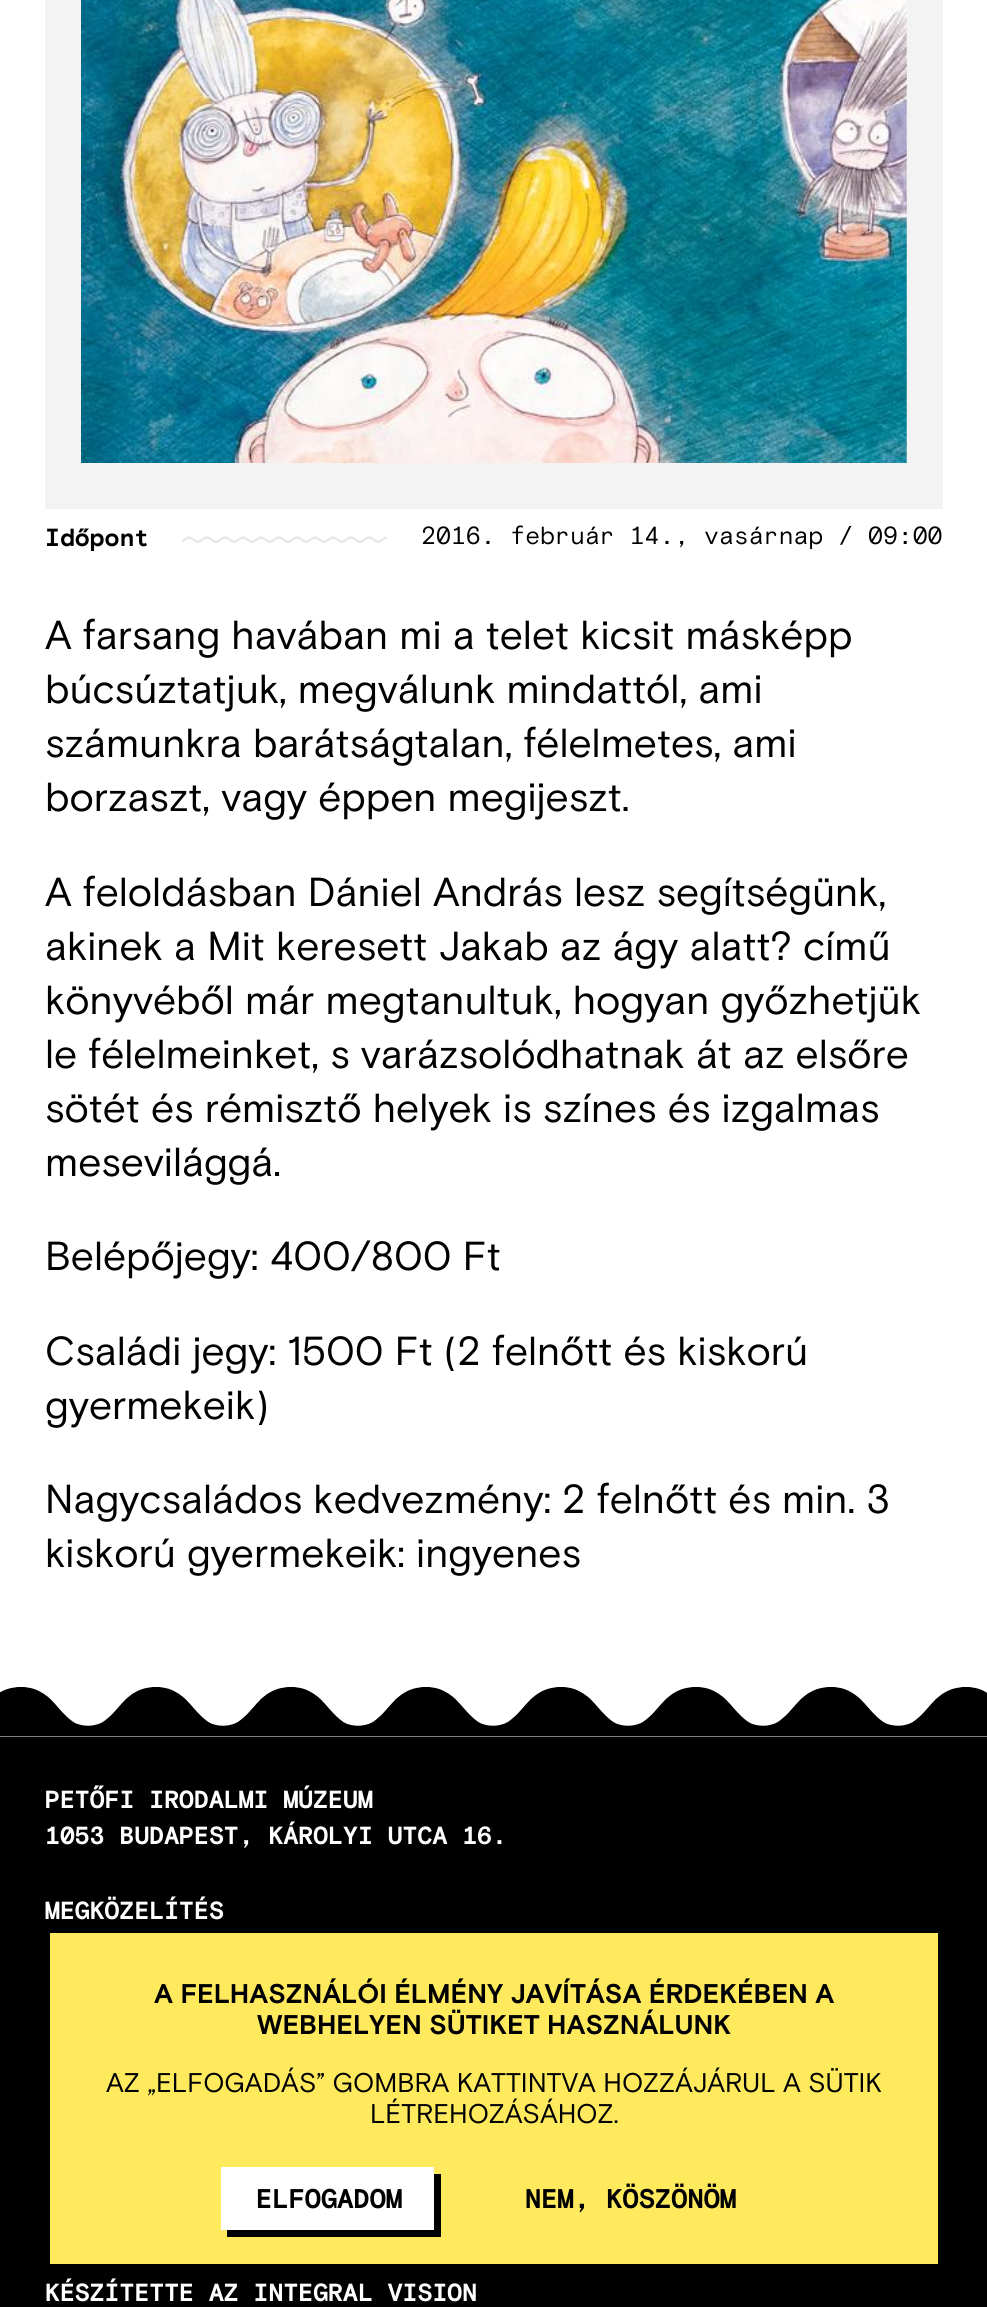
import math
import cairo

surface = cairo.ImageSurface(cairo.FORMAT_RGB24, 987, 2307)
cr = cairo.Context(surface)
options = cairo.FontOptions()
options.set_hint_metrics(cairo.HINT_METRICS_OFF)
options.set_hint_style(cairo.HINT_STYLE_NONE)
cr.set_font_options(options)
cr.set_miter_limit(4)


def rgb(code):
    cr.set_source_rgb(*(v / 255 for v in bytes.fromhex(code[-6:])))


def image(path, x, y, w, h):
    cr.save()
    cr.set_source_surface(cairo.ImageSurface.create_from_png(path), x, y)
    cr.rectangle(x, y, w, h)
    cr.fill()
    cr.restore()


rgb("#ffffff")
cr.paint()
rgb("#f3f3f4")
cr.rectangle(45, 0, 898, 509)
cr.fill()
image("img/1.png", 81, 0, 826, 463)
image("img/2.png", 182, 536, 205, 7)
rgb("#000000")
cr.rectangle(0, 1737, 987, 570)
cr.fill()
image("img/3.png", 0, 1687, 987, 50)
rgb("#ffea5e")
cr.rectangle(50, 1933, 888, 331)
cr.fill()
rgb("#000000")
cr.new_path()
cr.move_to(227, 2230)
cr.line_to(227, 2237)
cr.line_to(441, 2237)
cr.line_to(441, 2174)
cr.line_to(434, 2174)
cr.line_to(434, 2230)
cr.close_path()
cr.fill()
rgb("#ffffff")
cr.rectangle(221, 2167, 213, 63)
cr.fill()
cr.select_font_face("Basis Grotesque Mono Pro", cairo.FONT_SLANT_NORMAL, cairo.FONT_WEIGHT_BOLD)
cr.set_font_size(24.75)
rgb("#000000")
cr.move_to(45, 546)
cr.show_text("Időpont")
cr.select_font_face("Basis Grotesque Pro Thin")
cr.move_to(421, 544)
cr.show_text("2016. február 14., vasárnap / 09:00")
cr.select_font_face("Basis Grotesque Pro")
cr.set_font_size(40.5)
for x, y, s in [
    (45, 649, "A farsang havában mi a telet kicsit másképp"),
    (45, 703, "búcsúztatjuk, megválunk mindattól, ami"),
    (45, 757, "számunkra barátságtalan, félelmetes, ami"),
    (45, 811, "borzaszt, vagy éppen megijeszt."),
    (45, 906, "A feloldásban Dániel András lesz segítségünk,"),
    (45, 960, "akinek a Mit keresett Jakab az ágy alatt? című"),
    (45, 1014, "könyvéből már megtanultuk, hogyan győzhetjük"),
    (45, 1068, "le félelmeinket, s varázsolódhatnak át az elsőre"),
    (45, 1122, "sötét és rémisztő helyek is színes és izgalmas"),
    (45, 1176, "mesevilággá."),
    (45, 1270, "Belépőjegy: 400/800 Ft"),
    (45, 1365, "Családi jegy: 1500 Ft (2 felnőtt és kiskorú"),
    (45, 1419, "gyermekeik)"),
    (45, 1513, "Nagycsaládos kedvezmény: 2 felnőtt és min. 3"),
    (45, 1567, "kiskorú gyermekeik: ingyenes"),
]:
    cr.move_to(x, y)
    cr.show_text(s)
cr.select_font_face("Basis Grotesque Mono Pro", cairo.FONT_SLANT_NORMAL, cairo.FONT_WEIGHT_BOLD)
cr.set_font_size(24.75)
rgb("#ffffff")
for x, y, s in [
    (45, 1808, "PETŐFI IRODALMI MÚZEUM"),
    (45, 1844, "1053 BUDAPEST, KÁROLYI UTCA 16."),
    (45, 1919, "MEGKÖZELÍTÉS"),
    (45, 2301, "KÉSZÍTETTE AZ INTEGRAL VISION"),
]:
    cr.move_to(x, y)
    cr.show_text(s)
cr.select_font_face("Basis Grotesque Pro", cairo.FONT_SLANT_NORMAL, cairo.FONT_WEIGHT_BOLD)
cr.set_font_size(27)
rgb("#000000")
cr.move_to(154, 2003)
cr.show_text("A FELHASZNÁLÓI ÉLMÉNY JAVÍTÁSA ÉRDEKÉBEN A")
cr.move_to(257, 2034)
cr.show_text("WEBHELYEN SÜTIKET HASZNÁLUNK")
cr.select_font_face("Basis Grotesque Pro")
cr.move_to(106, 2092)
cr.show_text("AZ „ELFOGADÁS” GOMBRA KATTINTVA HOZZÁJÁRUL A SÜTIK")
cr.move_to(370, 2123)
cr.show_text("LÉTREHOZÁSÁHOZ.")
cr.select_font_face("Basis Grotesque Mono Pro", cairo.FONT_SLANT_NORMAL, cairo.FONT_WEIGHT_BOLD)
cr.move_to(256, 2208)
cr.show_text("ELFOGADOM")
cr.move_to(525, 2208)
cr.show_text("NEM, KÖSZÖNÖM")
surface.write_to_png("page.png")
